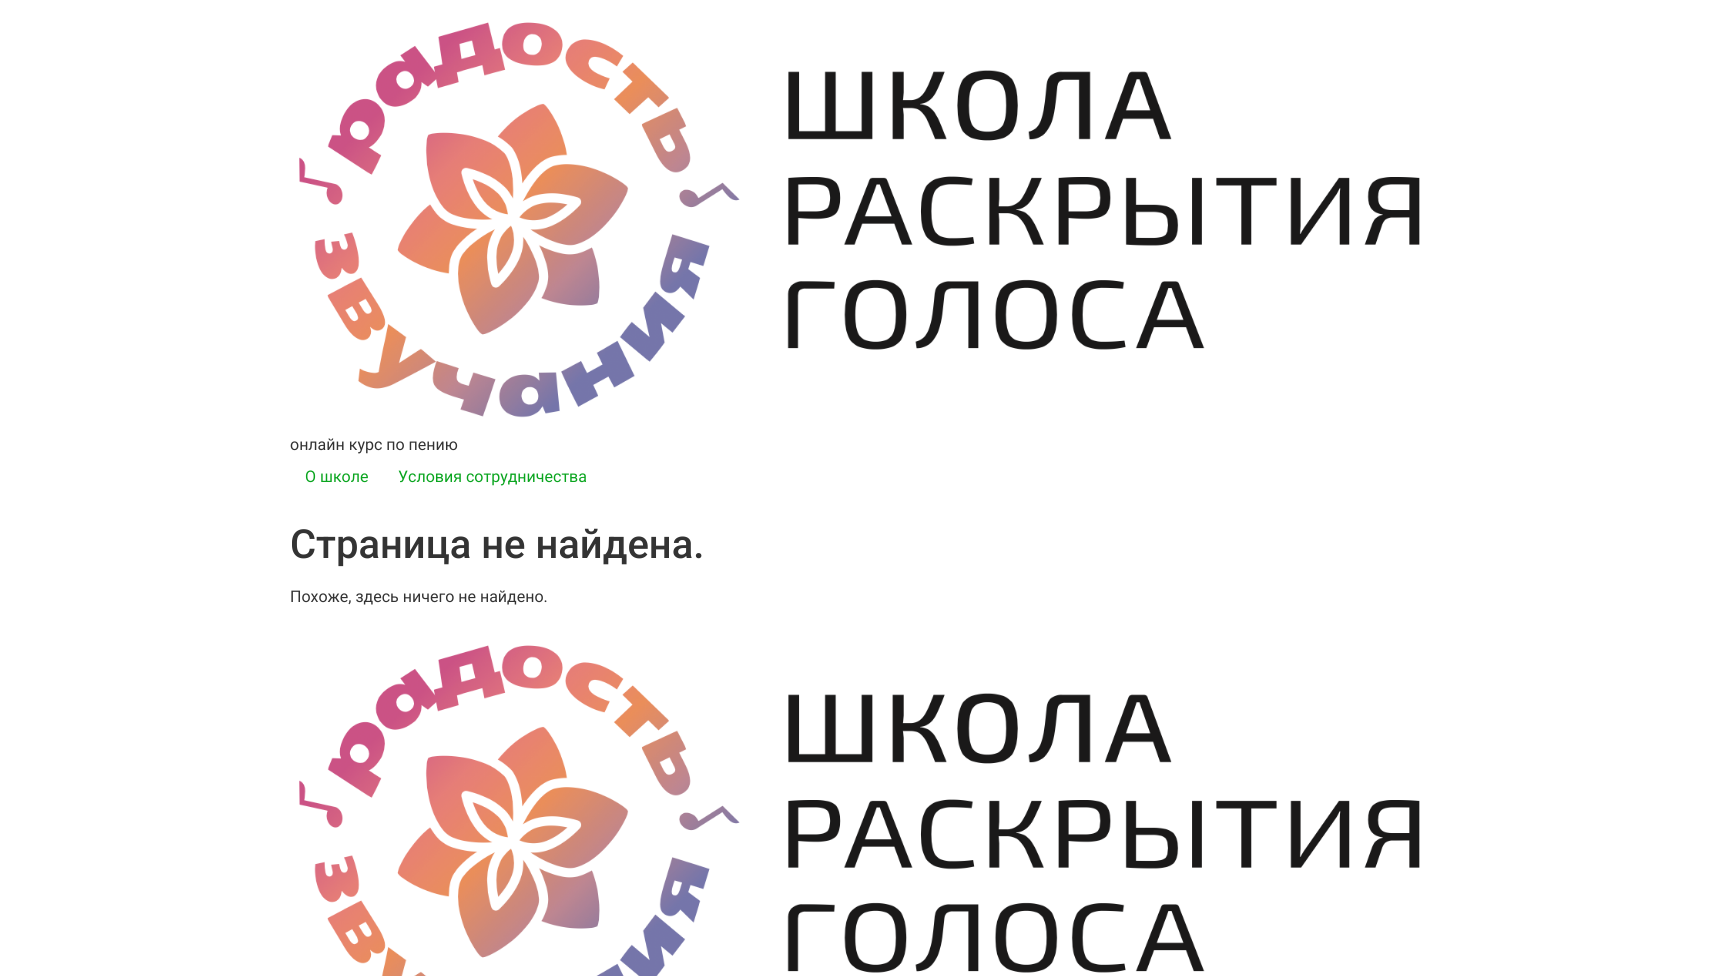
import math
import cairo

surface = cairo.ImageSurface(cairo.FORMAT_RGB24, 1720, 976)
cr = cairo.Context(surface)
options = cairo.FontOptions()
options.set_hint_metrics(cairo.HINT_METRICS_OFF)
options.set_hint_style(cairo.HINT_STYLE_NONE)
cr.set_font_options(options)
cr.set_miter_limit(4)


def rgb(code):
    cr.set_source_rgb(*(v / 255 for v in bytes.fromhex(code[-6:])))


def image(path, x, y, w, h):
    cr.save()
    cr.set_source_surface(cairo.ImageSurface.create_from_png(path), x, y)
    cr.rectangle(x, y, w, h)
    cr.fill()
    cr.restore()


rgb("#ffffff")
cr.paint()
image("img/1.png", 299, 22, 1121, 396)
image("img/2.png", 299, 645, 1121, 331)
cr.select_font_face("Roboto")
cr.set_font_size(16)
rgb("#333333")
cr.move_to(290, 450)
cr.show_text("онлайн курс по пению")
rgb("#0aa51f")
cr.move_to(305, 482)
cr.show_text("О школе")
cr.move_to(398, 482)
cr.show_text("Условия сотрудничества")
cr.select_font_face("Roboto Medium")
cr.set_font_size(40)
rgb("#333333")
cr.move_to(290, 558)
cr.show_text("Страница не найдена.")
cr.select_font_face("Roboto")
cr.set_font_size(16)
cr.move_to(290, 602)
cr.show_text("Похоже, здесь ничего не найдено.")
surface.write_to_png("page.png")
